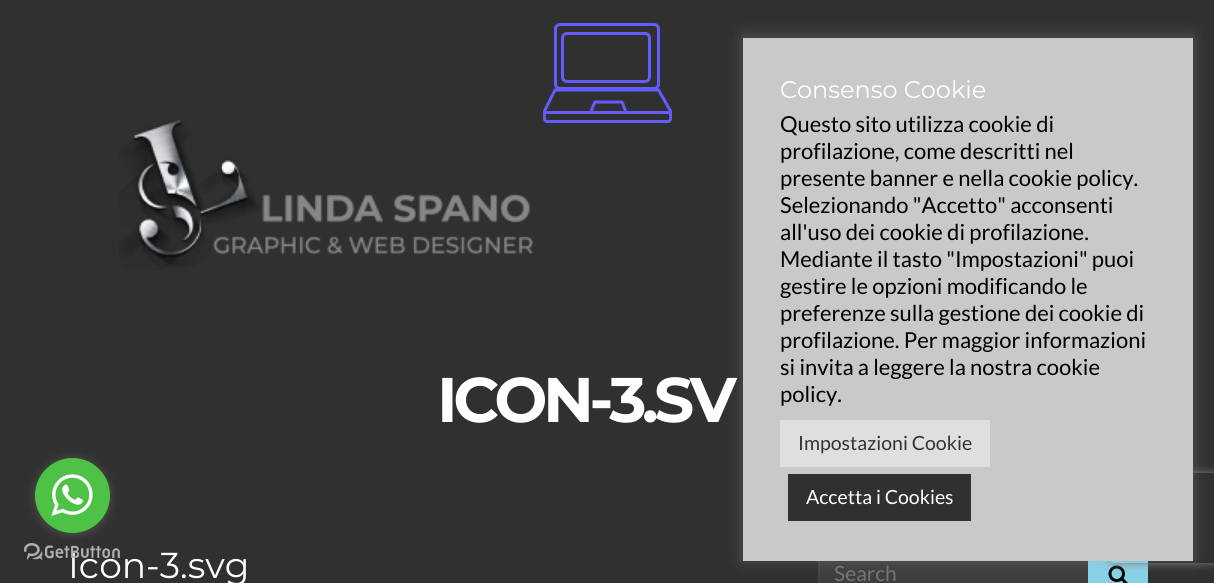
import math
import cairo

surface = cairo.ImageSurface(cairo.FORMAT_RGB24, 1214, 583)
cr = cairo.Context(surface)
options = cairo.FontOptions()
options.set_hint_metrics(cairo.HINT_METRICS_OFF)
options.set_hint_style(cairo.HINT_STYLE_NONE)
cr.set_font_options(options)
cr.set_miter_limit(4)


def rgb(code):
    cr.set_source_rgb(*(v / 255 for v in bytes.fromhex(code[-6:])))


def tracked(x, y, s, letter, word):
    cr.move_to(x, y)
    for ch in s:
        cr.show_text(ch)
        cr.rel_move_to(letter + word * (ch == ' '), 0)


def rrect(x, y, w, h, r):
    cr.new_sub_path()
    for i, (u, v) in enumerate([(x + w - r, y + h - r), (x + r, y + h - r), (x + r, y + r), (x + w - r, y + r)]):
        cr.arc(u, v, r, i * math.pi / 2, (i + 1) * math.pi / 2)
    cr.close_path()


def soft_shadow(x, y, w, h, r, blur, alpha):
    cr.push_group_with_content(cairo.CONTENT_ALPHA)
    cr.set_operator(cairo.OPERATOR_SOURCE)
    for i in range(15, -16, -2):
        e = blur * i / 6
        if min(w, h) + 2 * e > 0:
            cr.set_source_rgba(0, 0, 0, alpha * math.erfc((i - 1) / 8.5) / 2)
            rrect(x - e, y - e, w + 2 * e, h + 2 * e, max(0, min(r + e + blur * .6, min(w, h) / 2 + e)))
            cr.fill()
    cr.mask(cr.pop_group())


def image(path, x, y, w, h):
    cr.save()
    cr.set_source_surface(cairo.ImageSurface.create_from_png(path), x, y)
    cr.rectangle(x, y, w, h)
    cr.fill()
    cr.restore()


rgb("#303030")
cr.paint()
rrect(555.5, 24.5, 103, 64, 4.5)
rgb("#635dff")
cr.set_line_width(3)
cr.stroke()
rrect(562.5, 33.5, 87, 48, 4.5)
cr.stroke()
cr.new_path()
cr.move_to(555, 90)
cr.line_to(544.5, 111)
cr.line_to(544.5, 112.5)
cr.line_to(670.5, 112.5)
cr.line_to(670.5, 111)
cr.line_to(658.5, 90)
cr.close_path()
cr.stroke()
cr.save()
cr.rectangle(543, 23, 129, 100)
cr.clip()
cr.new_path()
cr.move_to(670.5, 112.5)
cr.line_to(544.5, 112.5)
cr.curve_to(544.5, 115, 543, 121.5, 547.5, 121.5)
cr.line_to(667.5, 121.5)
cr.curve_to(672, 121.5, 670.5, 115, 670.5, 112.5)
cr.close_path()
cr.stroke()
cr.restore()
cr.new_path()
cr.move_to(591, 111)
cr.line_to(594.5, 103)
cr.curve_to(594.5, 102.5, 595, 102, 595.5, 102)
cr.line_to(621, 102)
cr.curve_to(621.5, 102, 622, 102.5, 622.5, 103)
cr.line_to(625.5, 111)
cr.stroke()
image("img/1.png", 119, 120, 414, 150)
rgb("#3e3e3e")
cr.rectangle(820, 561, 268, 22)
cr.fill()
cr.rectangle(819, 544, 328, 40)
rgb("#444444")
cr.set_line_width(2)
cr.stroke()
rgb("#87d1e6")
cr.rectangle(1088, 561, 60, 22)
cr.fill()
image("img/2.png", 1108, 565, 20, 18)
rgb("#acabab")
soft_shadow(743, 36, 450, 524, 0, 7.5, 0.3)
cr.save()
cr.set_fill_rule(cairo.FILL_RULE_EVEN_ODD)
cr.new_path()
cr.move_to(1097, 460)
cr.line_to(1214, 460)
cr.line_to(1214, 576)
cr.line_to(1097, 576)
cr.close_path()
cr.move_to(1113, 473)
cr.line_to(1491, 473)
cr.curve_to(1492.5, 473, 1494, 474.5, 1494, 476)
cr.line_to(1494, 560)
cr.curve_to(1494, 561.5, 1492.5, 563, 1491, 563)
cr.line_to(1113, 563)
cr.curve_to(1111.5, 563, 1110, 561.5, 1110, 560)
cr.line_to(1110, 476)
cr.curve_to(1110, 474.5, 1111.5, 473, 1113, 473)
cr.close_path()
cr.clip()
rgb("#808080")
soft_shadow(1110, 473, 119, 90, 3, 4, 1)
cr.restore()
for x, y, w, h, color in [
    (743, 38, 450, 523, "#c9c9c9"),
    (780, 420, 210, 47, "#dedfe0"),
    (788, 474, 183, 47, "#303030"),
]:
    rgb(color)
    cr.rectangle(x, y, w, h)
    cr.fill()
cr.select_font_face("Montserrat", cairo.FONT_SLANT_NORMAL, cairo.FONT_WEIGHT_BOLD)
cr.set_font_size(63)
rgb("#ffffff")
tracked(437, 422, "ICON-3.SV", -4.5, 0)
cr.select_font_face("Montserrat")
cr.set_font_size(36)
cr.move_to(68, 578)
cr.show_text("Icon-3.svg")
cr.select_font_face("Lato")
cr.set_font_size(21)
rgb("#757575")
cr.move_to(834, 581)
cr.show_text("Search")
cr.select_font_face("Montserrat")
cr.set_font_size(24)
rgb("#ffffff")
cr.move_to(780, 98)
cr.show_text("Consenso Cookie")
cr.select_font_face("Lato")
cr.set_font_size(22)
rgb("#000000")
for x, y, s in [
    (780, 132, "Questo sito utilizza cookie di"),
    (780, 159, "profilazione, come descritti nel"),
    (780, 186, "presente banner e nella cookie policy."),
    (780, 213, "Selezionando \"Accetto\" acconsenti"),
    (780, 240, "all'uso dei cookie di profilazione."),
    (780, 267, "Mediante il tasto \"Impostazioni\" puoi"),
    (780, 294, "gestire le opzioni modificando le"),
    (780, 321, "preferenze sulla gestione dei cookie di"),
    (780, 348, "profilazione. Per maggior informazioni"),
    (780, 375, "si invita a leggere la nostra cookie"),
    (780, 402, "policy."),
]:
    cr.move_to(x, y)
    cr.show_text(s)
cr.set_font_size(19.5)
rgb("#333333")
cr.move_to(798, 450)
cr.show_text("Impostazioni Cookie")
rgb("#ffffff")
cr.move_to(806, 504)
cr.show_text("Accetta i Cookies")
image("img/4.png", 24, 543, 96, 17)
rgb("#888888")
soft_shadow(35, 459, 75, 75, 37.5, 5, 0.4)
rgb("#4dc247")
cr.arc(72.5, 495.5, 37.5, 0, 2 * math.pi)
cr.fill()
image("img/3.png", 51, 474, 42, 42)
surface.write_to_png("page.png")
